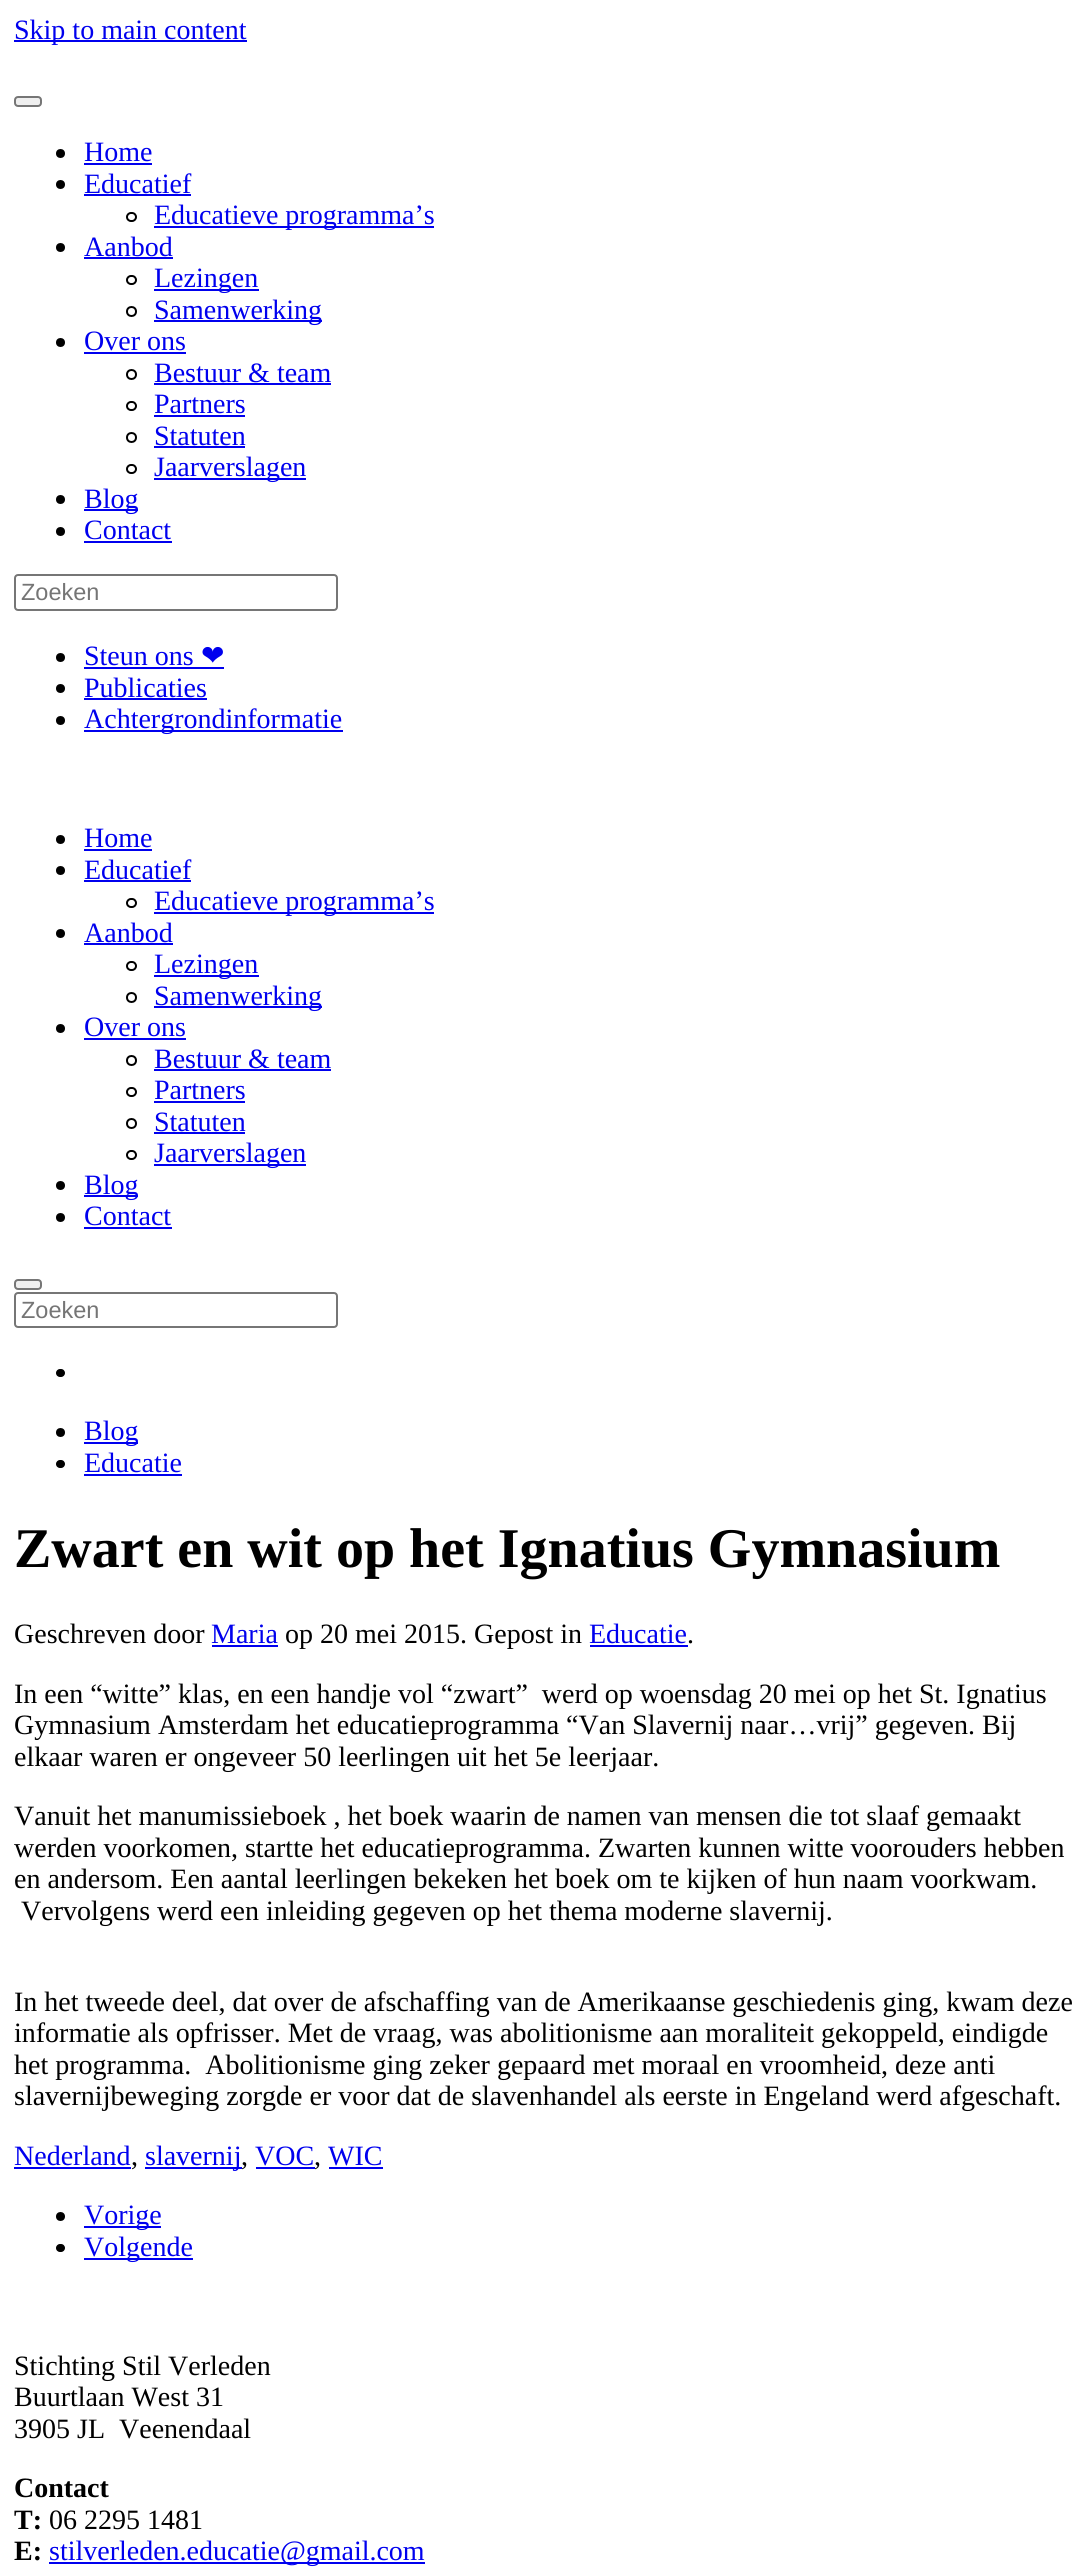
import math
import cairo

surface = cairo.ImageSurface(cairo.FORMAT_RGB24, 1087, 2572)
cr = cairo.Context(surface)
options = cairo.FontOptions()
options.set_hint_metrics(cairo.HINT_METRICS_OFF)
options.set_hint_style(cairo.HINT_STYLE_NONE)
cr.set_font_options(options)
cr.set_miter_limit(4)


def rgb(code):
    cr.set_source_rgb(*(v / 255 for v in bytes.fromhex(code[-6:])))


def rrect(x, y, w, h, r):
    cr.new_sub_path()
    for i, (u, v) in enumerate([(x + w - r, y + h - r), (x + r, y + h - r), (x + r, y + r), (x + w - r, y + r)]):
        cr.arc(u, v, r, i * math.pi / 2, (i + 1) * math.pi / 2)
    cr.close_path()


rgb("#ffffff")
cr.paint()
rgb("#0000ee")
cr.rectangle(14, 40, 233, 2)
cr.fill()
rgb("#efefef")
rrect(15, 97, 26, 9, 3)
cr.fill_preserve()
rgb("#767676")
cr.stroke()
rgb("#000000")
cr.arc(60.5, 153.5, 4.5, 0, 2 * math.pi)
cr.fill()
rgb("#0000ee")
cr.rectangle(84, 163, 68, 2)
cr.fill()
rgb("#000000")
cr.arc(60.5, 184.5, 4.5, 0, 2 * math.pi)
cr.fill()
rgb("#0000ee")
cr.rectangle(84, 194, 107, 2)
cr.fill()
rrect(127, 213, 9, 8, 4)
rgb("#000000")
cr.stroke()
rgb("#0000ee")
cr.rectangle(154, 226, 280, 2)
cr.fill()
rgb("#000000")
cr.arc(60.5, 247.5, 4.5, 0, 2 * math.pi)
cr.fill()
rgb("#0000ee")
cr.rectangle(84, 257, 89, 2)
cr.fill()
rrect(127, 276, 9, 8, 4)
rgb("#000000")
cr.stroke()
rgb("#0000ee")
cr.rectangle(154, 289, 105, 2)
cr.fill()
cr.arc(131.5, 311.5, 4.5, 0, 2 * math.pi)
rgb("#000000")
cr.stroke()
rgb("#0000ee")
cr.rectangle(154, 320, 168, 2)
cr.fill()
rgb("#000000")
cr.arc(60.5, 342.5, 4.5, 0, 2 * math.pi)
cr.fill()
rgb("#0000ee")
cr.rectangle(84, 352, 102, 2)
cr.fill()
cr.arc(131.5, 374.5, 4.5, 0, 2 * math.pi)
rgb("#000000")
cr.stroke()
rgb("#0000ee")
cr.rectangle(154, 383, 177, 2)
cr.fill()
rrect(127, 402, 9, 8, 4)
rgb("#000000")
cr.stroke()
rgb("#0000ee")
cr.rectangle(154, 415, 91, 2)
cr.fill()
cr.arc(131.5, 437.5, 4.5, 0, 2 * math.pi)
rgb("#000000")
cr.stroke()
rgb("#0000ee")
cr.rectangle(154, 446, 91, 2)
cr.fill()
rrect(127, 465, 9, 8, 4)
rgb("#000000")
cr.stroke()
rgb("#0000ee")
cr.rectangle(154, 478, 152, 2)
cr.fill()
rgb("#000000")
cr.arc(60.5, 499.5, 4.5, 0, 2 * math.pi)
cr.fill()
rgb("#0000ee")
cr.rectangle(84, 509, 54, 2)
cr.fill()
rgb("#000000")
cr.arc(60.5, 531.5, 4.5, 0, 2 * math.pi)
cr.fill()
rgb("#0000ee")
cr.rectangle(84, 541, 88, 2)
cr.fill()
rrect(15, 575, 322, 35, 3)
rgb("#767676")
cr.stroke()
rgb("#000000")
cr.arc(60.5, 657.5, 4.5, 0, 2 * math.pi)
cr.fill()
rgb("#0000ee")
cr.rectangle(84, 667, 140, 2)
cr.fill()
rgb("#000000")
cr.arc(60.5, 688.5, 4.5, 0, 2 * math.pi)
cr.fill()
rgb("#0000ee")
cr.rectangle(84, 698, 123, 2)
cr.fill()
rgb("#000000")
cr.arc(60.5, 720.5, 4.5, 0, 2 * math.pi)
cr.fill()
rgb("#0000ee")
cr.rectangle(84, 730, 259, 2)
cr.fill()
rgb("#000000")
cr.arc(60.5, 839.5, 4.5, 0, 2 * math.pi)
cr.fill()
rgb("#0000ee")
cr.rectangle(84, 849, 68, 2)
cr.fill()
rgb("#000000")
cr.arc(60.5, 870.5, 4.5, 0, 2 * math.pi)
cr.fill()
rgb("#0000ee")
cr.rectangle(84, 880, 107, 2)
cr.fill()
rrect(127, 899, 9, 8, 4)
rgb("#000000")
cr.stroke()
rgb("#0000ee")
cr.rectangle(154, 912, 280, 2)
cr.fill()
rgb("#000000")
cr.arc(60.5, 933.5, 4.5, 0, 2 * math.pi)
cr.fill()
rgb("#0000ee")
cr.rectangle(84, 943, 89, 2)
cr.fill()
rrect(127, 962, 9, 8, 4)
rgb("#000000")
cr.stroke()
rgb("#0000ee")
cr.rectangle(154, 975, 105, 2)
cr.fill()
cr.arc(131.5, 997.5, 4.5, 0, 2 * math.pi)
rgb("#000000")
cr.stroke()
rgb("#0000ee")
cr.rectangle(154, 1006, 168, 2)
cr.fill()
rgb("#000000")
cr.arc(60.5, 1028.5, 4.5, 0, 2 * math.pi)
cr.fill()
rgb("#0000ee")
cr.rectangle(84, 1038, 102, 2)
cr.fill()
cr.arc(131.5, 1060.5, 4.5, 0, 2 * math.pi)
rgb("#000000")
cr.stroke()
rgb("#0000ee")
cr.rectangle(154, 1069, 177, 2)
cr.fill()
rrect(127, 1088, 9, 8, 4)
rgb("#000000")
cr.stroke()
rgb("#0000ee")
cr.rectangle(154, 1101, 91, 2)
cr.fill()
cr.arc(131.5, 1123.5, 4.5, 0, 2 * math.pi)
rgb("#000000")
cr.stroke()
rgb("#0000ee")
cr.rectangle(154, 1132, 91, 2)
cr.fill()
rrect(127, 1151, 9, 8, 4)
rgb("#000000")
cr.stroke()
rgb("#0000ee")
cr.rectangle(154, 1164, 152, 2)
cr.fill()
rgb("#000000")
cr.arc(60.5, 1185.5, 4.5, 0, 2 * math.pi)
cr.fill()
rgb("#0000ee")
cr.rectangle(84, 1195, 54, 2)
cr.fill()
rgb("#000000")
cr.arc(60.5, 1217.5, 4.5, 0, 2 * math.pi)
cr.fill()
rgb("#0000ee")
cr.rectangle(84, 1227, 88, 2)
cr.fill()
rgb("#efefef")
rrect(15, 1280, 26, 9, 3)
cr.fill_preserve()
rgb("#767676")
cr.stroke()
rrect(15, 1293, 322, 34, 3)
cr.stroke()
rgb("#000000")
rrect(56, 1369, 9, 8, 4)
cr.fill()
cr.arc(60.5, 1432.5, 4.5, 0, 2 * math.pi)
cr.fill()
rgb("#0000ee")
cr.rectangle(84, 1442, 54, 2)
cr.fill()
rgb("#000000")
rrect(56, 1460, 9, 8, 4)
cr.fill()
for x, y, w, h, color in [
    (84, 1474, 98, 2, "#0000ee"),
    (212, 1645, 66, 2, "#0000ee"),
    (590, 1645, 98, 2, "#0000ee"),
    (14, 2167, 117, 2, "#0000ee"),
    (145, 2167, 97, 2, "#0000ee"),
    (256, 2167, 59, 2, "#0000ee"),
    (329, 2167, 54, 2, "#0000ee"),
]:
    rgb(color)
    cr.rectangle(x, y, w, h)
    cr.fill()
rgb("#000000")
cr.arc(60.5, 2216.5, 4.5, 0, 2 * math.pi)
cr.fill()
rgb("#0000ee")
cr.rectangle(84, 2226, 77, 2)
cr.fill()
rgb("#000000")
rrect(56, 2244, 9, 8, 4)
cr.fill()
rgb("#0000ee")
cr.rectangle(84, 2258, 109, 2)
cr.fill()
cr.rectangle(49, 2562, 376, 2)
cr.fill()
cr.select_font_face("Liberation Serif")
cr.set_font_size(28)
for x, y, s in [
    (14, 39, "Skip to main content"),
    (84, 161, "Home"),
    (84, 193, "Educatief"),
    (154, 224, "Educatieve programma’s"),
    (84, 256, "Aanbod"),
    (154, 287, "Lezingen"),
    (154, 319, "Samenwerking"),
    (84, 350, "Over ons"),
    (154, 382, "Bestuur & team"),
    (154, 413, "Partners"),
    (154, 445, "Statuten"),
    (154, 476, "Jaarverslagen"),
    (84, 508, "Blog"),
    (84, 539, "Contact"),
]:
    cr.move_to(x, y)
    cr.show_text(s)
cr.select_font_face("Liberation Sans")
cr.set_font_size(23.5)
rgb("#757575")
cr.move_to(21, 600)
cr.show_text("Zoeken")
cr.select_font_face("Liberation Serif")
cr.set_font_size(28)
rgb("#0000ee")
cr.move_to(84, 665)
cr.show_text("Steun ons")
cr.select_font_face("DejaVu Sans")
cr.move_to(201, 665)
cr.show_text("❤")
cr.select_font_face("Liberation Serif")
for x, y, s in [
    (84, 697, "Publicaties"),
    (84, 728, "Achtergrondinformatie"),
    (84, 847, "Home"),
    (84, 879, "Educatief"),
    (154, 910, "Educatieve programma’s"),
    (84, 942, "Aanbod"),
    (154, 973, "Lezingen"),
    (154, 1005, "Samenwerking"),
    (84, 1036, "Over ons"),
    (154, 1068, "Bestuur & team"),
    (154, 1099, "Partners"),
    (154, 1131, "Statuten"),
    (154, 1162, "Jaarverslagen"),
    (84, 1194, "Blog"),
    (84, 1225, "Contact"),
]:
    cr.move_to(x, y)
    cr.show_text(s)
cr.select_font_face("Liberation Sans")
cr.set_font_size(23.5)
rgb("#757575")
cr.move_to(21, 1318)
cr.show_text("Zoeken")
cr.select_font_face("Liberation Serif")
cr.set_font_size(28)
rgb("#0000ee")
cr.move_to(84, 1440)
cr.show_text("Blog")
cr.move_to(84, 1472)
cr.show_text("Educatie")
cr.select_font_face("Liberation Serif", cairo.FONT_SLANT_NORMAL, cairo.FONT_WEIGHT_BOLD)
cr.set_font_size(56)
rgb("#000000")
cr.move_to(14, 1567)
cr.show_text("Zwart en wit op het Ignatius Gymnasium")
cr.select_font_face("Liberation Serif")
cr.set_font_size(28)
cr.move_to(14, 1643)
cr.show_text("Geschreven door")
rgb("#0000ee")
cr.move_to(211, 1643)
cr.show_text("Maria")
rgb("#000000")
cr.move_to(285, 1643)
cr.show_text("op 20 mei 2015. Gepost in")
rgb("#0000ee")
cr.move_to(589, 1643)
cr.show_text("Educatie")
rgb("#000000")
for x, y, s in [
    (687, 1643, "."),
    (14, 1703, "In een “witte” klas, en een handje vol “zwart”  werd op woensdag 20 mei op het St. Ignatius"),
    (14, 1734, "Gymnasium Amsterdam het educatieprogramma “Van Slavernij naar…vrij” gegeven. Bij"),
    (14, 1766, "elkaar waren er ongeveer 50 leerlingen uit het 5e leerjaar."),
    (14, 1825, "Vanuit het manumissieboek , het boek waarin de namen van mensen die tot slaaf gemaakt"),
    (14, 1857, "werden voorkomen, startte het educatieprogramma. Zwarten kunnen witte voorouders hebben"),
    (14, 1888, "en andersom. Een aantal leerlingen bekeken het boek om te kijken of hun naam voorkwam."),
    (21, 1920, "Vervolgens werd een inleiding gegeven op het thema moderne slavernij."),
    (14, 2011, "In het tweede deel, dat over de afschaffing van de Amerikaanse geschiedenis ging, kwam deze"),
    (14, 2042, "informatie als opfrisser. Met de vraag, was abolitionisme aan moraliteit gekoppeld, eindigde"),
    (14, 2074, "het programma.  Abolitionisme ging zeker gepaard met moraal en vroomheid, deze anti"),
    (14, 2105, "slavernijbeweging zorgde er voor dat de slavenhandel als eerste in Engeland werd afgeschaft."),
]:
    cr.move_to(x, y)
    cr.show_text(s)
rgb("#0000ee")
cr.move_to(14, 2165)
cr.show_text("Nederland")
rgb("#000000")
cr.move_to(131, 2165)
cr.show_text(",")
rgb("#0000ee")
cr.move_to(145, 2165)
cr.show_text("slavernij")
rgb("#000000")
cr.move_to(241, 2165)
cr.show_text(",")
rgb("#0000ee")
cr.move_to(255, 2165)
cr.show_text("VOC")
rgb("#000000")
cr.move_to(314, 2165)
cr.show_text(",")
rgb("#0000ee")
for x, y, s in [
    (328, 2165, "WIC"),
    (84, 2224, "Vorige"),
    (84, 2256, "Volgende"),
]:
    cr.move_to(x, y)
    cr.show_text(s)
rgb("#000000")
for x, y, s in [
    (14, 2375, "Stichting Stil Verleden"),
    (14, 2406, "Buurtlaan West 31"),
    (14, 2438, "3905 JL  Veenendaal"),
]:
    cr.move_to(x, y)
    cr.show_text(s)
cr.select_font_face("Liberation Serif", cairo.FONT_SLANT_NORMAL, cairo.FONT_WEIGHT_BOLD)
cr.move_to(14, 2497)
cr.show_text("Contact")
cr.move_to(14, 2529)
cr.show_text("T:")
cr.select_font_face("Liberation Serif")
cr.move_to(49, 2529)
cr.show_text("06 2295 1481")
cr.select_font_face("Liberation Serif", cairo.FONT_SLANT_NORMAL, cairo.FONT_WEIGHT_BOLD)
cr.move_to(14, 2560)
cr.show_text("E:")
cr.select_font_face("Liberation Serif")
rgb("#0000ee")
cr.move_to(49, 2560)
cr.show_text("stilverleden.educatie@gmail.com")
surface.write_to_png("page.png")
